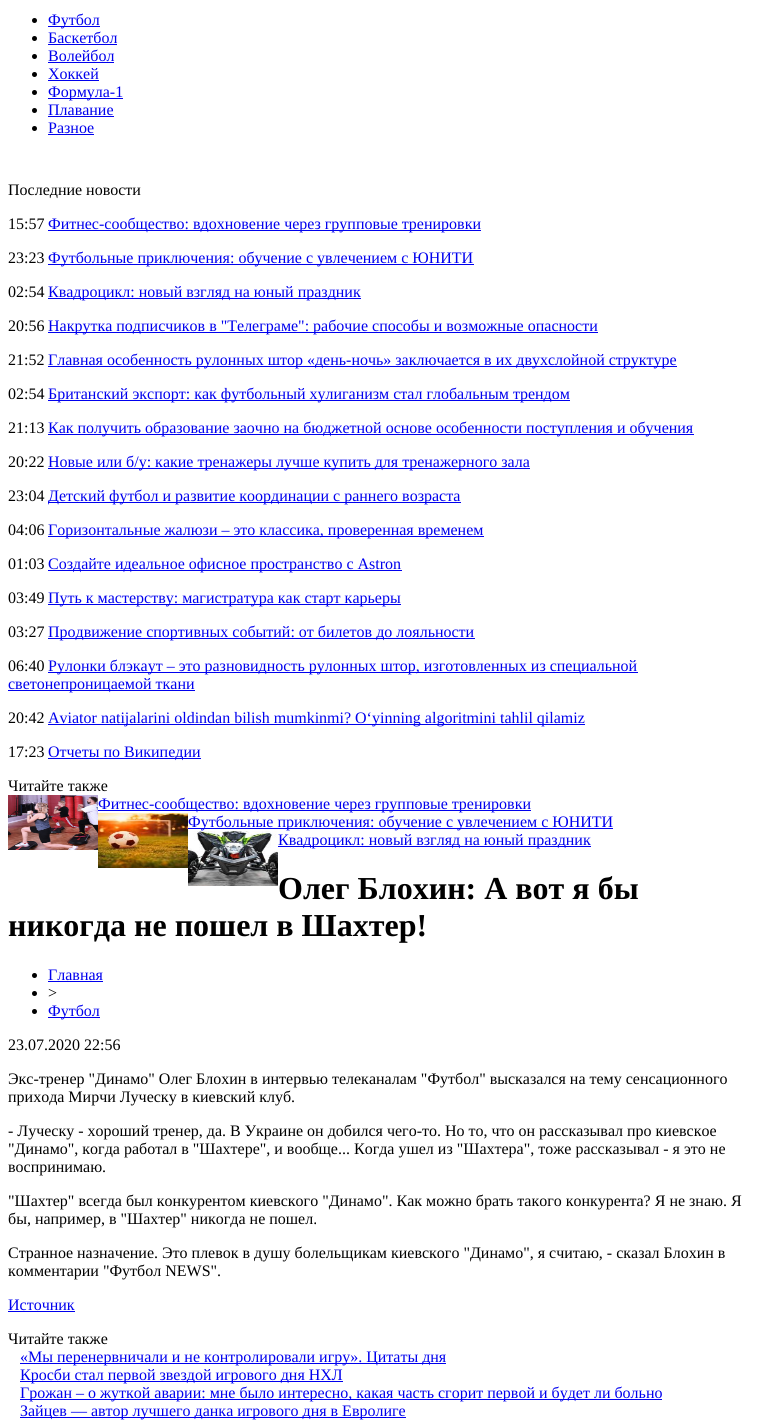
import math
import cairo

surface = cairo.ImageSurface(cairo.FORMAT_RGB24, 771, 1423)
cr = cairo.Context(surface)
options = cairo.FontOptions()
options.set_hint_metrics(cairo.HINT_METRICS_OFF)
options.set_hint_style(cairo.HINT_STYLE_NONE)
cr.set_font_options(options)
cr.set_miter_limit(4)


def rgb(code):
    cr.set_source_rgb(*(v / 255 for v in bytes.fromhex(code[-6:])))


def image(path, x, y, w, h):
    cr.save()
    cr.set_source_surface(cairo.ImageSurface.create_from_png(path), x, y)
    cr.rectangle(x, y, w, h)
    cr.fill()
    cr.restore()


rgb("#ffffff")
cr.paint()
rgb("#000000")
cr.arc(34.5, 20.5, 2.5, 0, 2 * math.pi)
cr.fill()
rgb("#0000ee")
cr.rectangle(48, 26, 52, 1)
cr.fill()
rgb("#000000")
cr.arc(34.5, 38.5, 2.5, 0, 2 * math.pi)
cr.fill()
rgb("#0000ee")
cr.rectangle(48, 44, 69, 1)
cr.fill()
rgb("#000000")
cr.arc(34.5, 56.5, 2.5, 0, 2 * math.pi)
cr.fill()
rgb("#0000ee")
cr.rectangle(48, 62, 66, 1)
cr.fill()
rgb("#000000")
cr.arc(34.5, 74.5, 2.5, 0, 2 * math.pi)
cr.fill()
rgb("#0000ee")
cr.rectangle(48, 80, 51, 1)
cr.fill()
rgb("#000000")
cr.arc(34.5, 92.5, 2.5, 0, 2 * math.pi)
cr.fill()
rgb("#0000ee")
cr.rectangle(48, 98, 75, 1)
cr.fill()
rgb("#000000")
cr.arc(34.5, 110.5, 2.5, 0, 2 * math.pi)
cr.fill()
rgb("#0000ee")
cr.rectangle(48, 116, 66, 1)
cr.fill()
rgb("#000000")
cr.arc(34.5, 128.5, 2.5, 0, 2 * math.pi)
cr.fill()
for x, y, w, h, color in [
    (48, 134, 46, 1, "#0000ee"),
    (48, 230, 433, 1, "#0000ee"),
    (48, 264, 426, 1, "#0000ee"),
    (48, 298, 313, 1, "#0000ee"),
    (48, 332, 550, 1, "#0000ee"),
    (48, 366, 629, 1, "#0000ee"),
    (48, 400, 522, 1, "#0000ee"),
    (48, 434, 646, 1, "#0000ee"),
    (48, 468, 482, 1, "#0000ee"),
    (48, 502, 413, 1, "#0000ee"),
    (48, 536, 436, 1, "#0000ee"),
    (48, 570, 354, 1, "#0000ee"),
    (48, 604, 353, 1, "#0000ee"),
    (48, 638, 427, 1, "#0000ee"),
    (48, 672, 590, 1, "#0000ee"),
    (8, 690, 187, 1, "#0000ee"),
    (48, 724, 537, 1, "#0000ee"),
    (48, 758, 153, 1, "#0000ee"),
]:
    rgb(color)
    cr.rectangle(x, y, w, h)
    cr.fill()
image("img/1.png", 8, 795, 90, 55)
cr.rectangle(98, 810, 433, 1)
cr.fill()
image("img/2.png", 98, 813, 90, 55)
cr.rectangle(188, 828, 425, 1)
cr.fill()
image("img/3.png", 188, 831, 90, 55)
cr.rectangle(278, 846, 313, 1)
cr.fill()
rgb("#000000")
cr.arc(34.5, 975.5, 2.5, 0, 2 * math.pi)
cr.fill()
rgb("#0000ee")
cr.rectangle(48, 981, 55, 1)
cr.fill()
rgb("#000000")
cr.arc(34.5, 993.5, 2.5, 0, 2 * math.pi)
cr.fill()
cr.arc(34.5, 1011.5, 2.5, 0, 2 * math.pi)
cr.fill()
for x, y, w, h, color in [
    (48, 1017, 52, 1, "#0000ee"),
    (8, 1311, 67, 1, "#0000ee"),
    (20, 1363, 426, 1, "#0000ee"),
    (20, 1381, 323, 1, "#0000ee"),
    (20, 1399, 642, 1, "#0000ee"),
    (20, 1417, 386, 1, "#0000ee"),
]:
    rgb(color)
    cr.rectangle(x, y, w, h)
    cr.fill()
cr.select_font_face("Liberation Serif")
cr.set_font_size(16)
for x, y, s in [
    (48, 25, "Футбол"),
    (48, 43, "Баскетбол"),
    (48, 61, "Волейбол"),
    (48, 79, "Хоккей"),
    (48, 97, "Формула-1"),
    (48, 115, "Плавание"),
    (48, 133, "Разное"),
]:
    cr.move_to(x, y)
    cr.show_text(s)
rgb("#000000")
cr.move_to(8, 195)
cr.show_text("Последние новости")
cr.move_to(8, 229)
cr.show_text("15:57")
rgb("#0000ee")
cr.move_to(48, 229)
cr.show_text("Фитнес-сообщество: вдохновение через групповые тренировки")
rgb("#000000")
cr.move_to(8, 263)
cr.show_text("23:23")
rgb("#0000ee")
cr.move_to(48, 263)
cr.show_text("Футбольные приключения: обучение с увлечением с ЮНИТИ")
rgb("#000000")
cr.move_to(8, 297)
cr.show_text("02:54")
rgb("#0000ee")
cr.move_to(48, 297)
cr.show_text("Квадроцикл: новый взгляд на юный праздник")
rgb("#000000")
cr.move_to(8, 331)
cr.show_text("20:56")
rgb("#0000ee")
cr.move_to(48, 331)
cr.show_text("Накрутка подписчиков в \"Телеграме\": рабочие способы и возможные опасности")
rgb("#000000")
cr.move_to(8, 365)
cr.show_text("21:52")
rgb("#0000ee")
cr.move_to(48, 365)
cr.show_text("Главная особенность рулонных штор «день-ночь» заключается в их двухслойной структуре")
rgb("#000000")
cr.move_to(8, 399)
cr.show_text("02:54")
rgb("#0000ee")
cr.move_to(48, 399)
cr.show_text("Британский экспорт: как футбольный хулиганизм стал глобальным трендом")
rgb("#000000")
cr.move_to(8, 433)
cr.show_text("21:13")
rgb("#0000ee")
cr.move_to(48, 433)
cr.show_text("Как получить образование заочно на бюджетной основе особенности поступления и обучения")
rgb("#000000")
cr.move_to(8, 467)
cr.show_text("20:22")
rgb("#0000ee")
cr.move_to(48, 467)
cr.show_text("Новые или б/у: какие тренажеры лучше купить для тренажерного зала")
rgb("#000000")
cr.move_to(8, 501)
cr.show_text("23:04")
rgb("#0000ee")
cr.move_to(48, 501)
cr.show_text("Детский футбол и развитие координации с раннего возраста")
rgb("#000000")
cr.move_to(8, 535)
cr.show_text("04:06")
rgb("#0000ee")
cr.move_to(48, 535)
cr.show_text("Горизонтальные жалюзи – это классика, проверенная временем")
rgb("#000000")
cr.move_to(8, 569)
cr.show_text("01:03")
rgb("#0000ee")
cr.move_to(48, 569)
cr.show_text("Создайте идеальное офисное пространство с Astron")
rgb("#000000")
cr.move_to(8, 603)
cr.show_text("03:49")
rgb("#0000ee")
cr.move_to(48, 603)
cr.show_text("Путь к мастерству: магистратура как старт карьеры")
rgb("#000000")
cr.move_to(8, 637)
cr.show_text("03:27")
rgb("#0000ee")
cr.move_to(48, 637)
cr.show_text("Продвижение спортивных событий: от билетов до лояльности")
rgb("#000000")
cr.move_to(8, 671)
cr.show_text("06:40")
rgb("#0000ee")
cr.move_to(48, 671)
cr.show_text("Рулонки блэкаут – это разновидность рулонных штор, изготовленных из специальной")
cr.move_to(8, 689)
cr.show_text("светонепроницаемой ткани")
rgb("#000000")
cr.move_to(8, 723)
cr.show_text("20:42")
rgb("#0000ee")
cr.move_to(48, 723)
cr.show_text("Aviator natijalarini oldindan bilish mumkinmi? O‘yinning algoritmini tahlil qilamiz")
rgb("#000000")
cr.move_to(8, 757)
cr.show_text("17:23")
rgb("#0000ee")
cr.move_to(48, 757)
cr.show_text("Отчеты по Википедии")
rgb("#000000")
cr.move_to(8, 791)
cr.show_text("Читайте также")
rgb("#0000ee")
for x, y, s in [
    (98, 809, "Фитнес-сообщество: вдохновение через групповые тренировки"),
    (188, 827, "Футбольные приключения: обучение с увлечением с ЮНИТИ"),
    (278, 845, "Квадроцикл: новый взгляд на юный праздник"),
]:
    cr.move_to(x, y)
    cr.show_text(s)
cr.select_font_face("Liberation Serif", cairo.FONT_SLANT_NORMAL, cairo.FONT_WEIGHT_BOLD)
cr.set_font_size(32)
rgb("#000000")
cr.move_to(278, 899)
cr.show_text("Олег Блохин: А вот я бы")
cr.move_to(8, 936)
cr.show_text("никогда не пошел в Шахтер!")
cr.select_font_face("Liberation Serif")
cr.set_font_size(16)
rgb("#0000ee")
cr.move_to(48, 980)
cr.show_text("Главная")
rgb("#000000")
cr.move_to(48, 998)
cr.show_text(">")
rgb("#0000ee")
cr.move_to(48, 1016)
cr.show_text("Футбол")
rgb("#000000")
for x, y, s in [
    (8, 1050, "23.07.2020 22:56"),
    (8, 1084, "Экс-тренер \"Динамо\" Олег Блохин в интервью телеканалам \"Футбол\" высказался на тему сенсационного"),
    (8, 1102, "прихода Мирчи Луческу в киевский клуб."),
    (8, 1136, "- Луческу - хороший тренер, да. В Украине он добился чего-то. Но то, что он рассказывал про киевское"),
    (8, 1154, "\"Динамо\", когда работал в \"Шахтере\", и вообще... Когда ушел из \"Шахтера\", тоже рассказывал - я это не"),
    (8, 1172, "воспринимаю."),
    (8, 1206, "\"Шахтер\" всегда был конкурентом киевского \"Динамо\". Как можно брать такого конкурента? Я не знаю. Я"),
    (8, 1224, "бы, например, в \"Шахтер\" никогда не пошел."),
    (8, 1258, "Странное назначение. Это плевок в душу болельщикам киевского \"Динамо\", я считаю, - сказал Блохин в"),
    (8, 1276, "комментарии \"Футбол NEWS\"."),
]:
    cr.move_to(x, y)
    cr.show_text(s)
rgb("#0000ee")
cr.move_to(8, 1310)
cr.show_text("Источник")
rgb("#000000")
cr.move_to(8, 1344)
cr.show_text("Читайте также")
rgb("#0000ee")
for x, y, s in [
    (20, 1362, "«Мы перенервничали и не контролировали игру». Цитаты дня"),
    (20, 1380, "Кросби стал первой звездой игрового дня НХЛ"),
    (20, 1398, "Грожан – о жуткой аварии: мне было интересно, какая часть сгорит первой и будет ли больно"),
    (20, 1416, "Зайцев — автор лучшего данка игрового дня в Евролиге"),
]:
    cr.move_to(x, y)
    cr.show_text(s)
surface.write_to_png("page.png")
